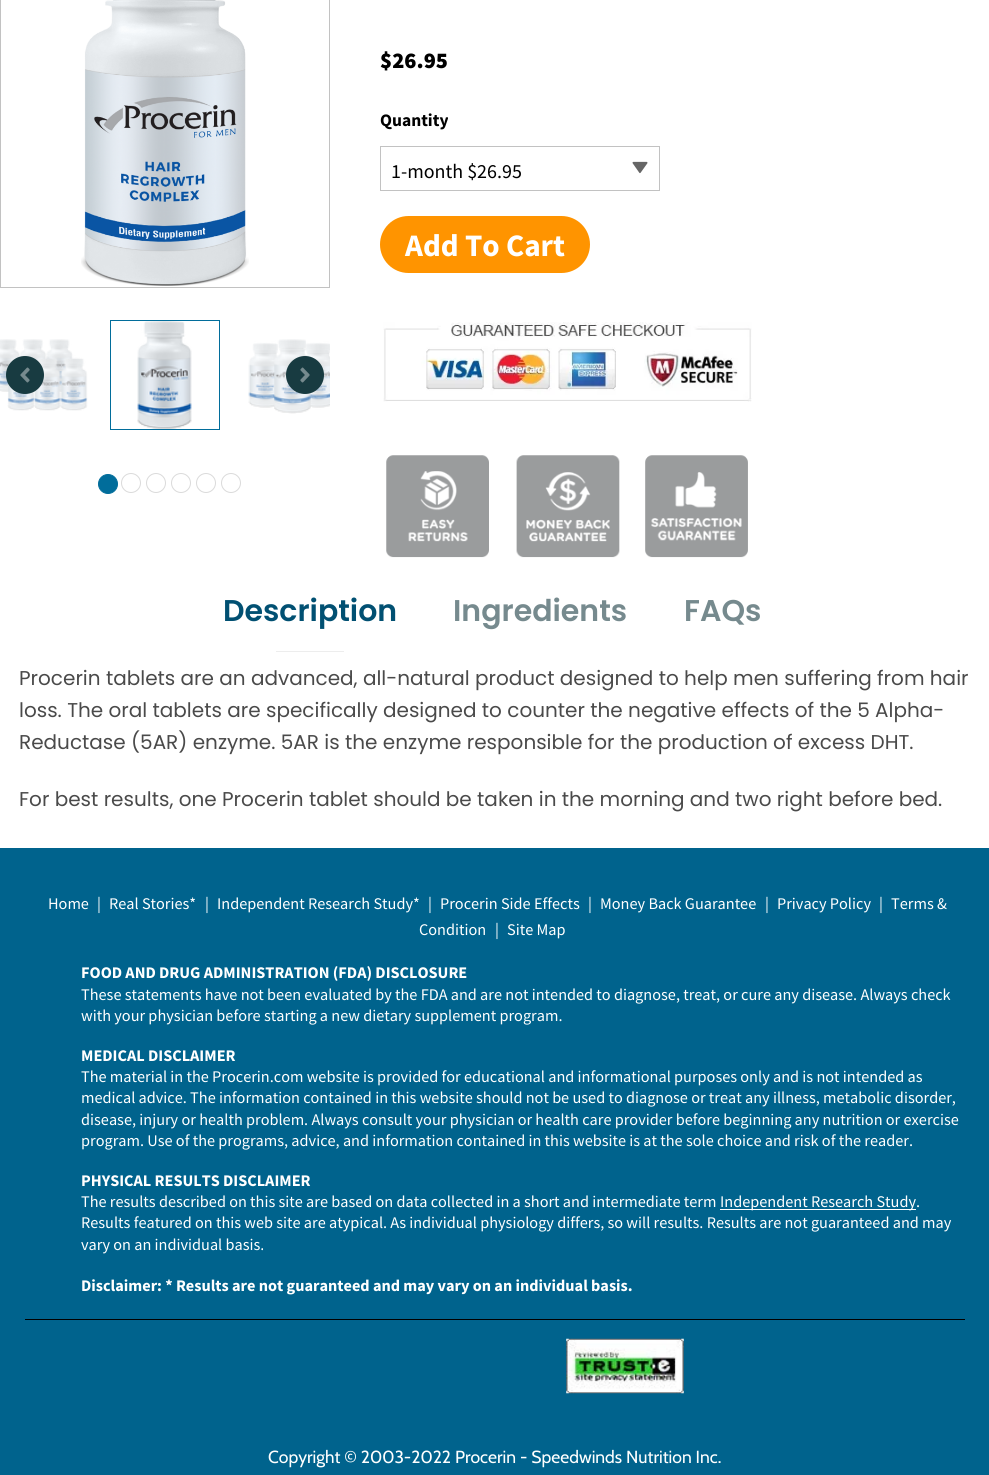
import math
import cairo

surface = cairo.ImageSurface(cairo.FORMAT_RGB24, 989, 1475)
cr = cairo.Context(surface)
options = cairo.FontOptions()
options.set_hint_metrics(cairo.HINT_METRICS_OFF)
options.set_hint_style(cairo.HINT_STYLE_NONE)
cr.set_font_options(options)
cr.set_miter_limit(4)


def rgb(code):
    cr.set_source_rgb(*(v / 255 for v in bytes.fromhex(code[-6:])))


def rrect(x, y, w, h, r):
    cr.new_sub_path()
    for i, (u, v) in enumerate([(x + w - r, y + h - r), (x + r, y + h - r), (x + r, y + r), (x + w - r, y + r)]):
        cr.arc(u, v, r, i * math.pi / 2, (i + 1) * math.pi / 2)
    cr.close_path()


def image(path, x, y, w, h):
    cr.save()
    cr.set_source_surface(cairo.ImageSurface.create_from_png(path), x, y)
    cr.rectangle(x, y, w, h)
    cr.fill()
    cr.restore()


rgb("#ffffff")
cr.paint()
cr.rectangle(0.5, -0.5, 329, 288)
rgb("#c2c2c2")
cr.set_line_width(1)
cr.stroke()
image("img/1.png", 81, 0, 168, 286)
image("img/2.png", 0, 339, 88, 72)
cr.rectangle(110.5, 320.5, 109, 109)
rgb("#016d9b")
cr.stroke()
image("img/3.png", 137, 321, 55, 108)
image("img/4.png", 248, 339, 82, 75)
rgb("#183b41")
cr.arc(25, 375, 19, 0, 2 * math.pi)
cr.fill()
image("img/5.png", 20, 367, 10, 16)
cr.arc(305, 375, 19, 0, 2 * math.pi)
cr.fill()
image("img/6.png", 300, 367, 10, 16)
rgb("#016d9b")
cr.arc(108, 484, 9.5, 0, 2 * math.pi)
cr.fill_preserve()
cr.stroke()
cr.arc(131, 483, 9.5, 0, 2 * math.pi)
rgb("#dadada")
cr.stroke()
cr.arc(156, 483, 9.5, 0, 2 * math.pi)
cr.stroke()
cr.arc(181, 483, 9.5, 0, 2 * math.pi)
cr.stroke()
cr.arc(206, 483, 9.5, 0, 2 * math.pi)
cr.stroke()
cr.arc(231, 483, 9.5, 0, 2 * math.pi)
cr.stroke()
cr.rectangle(380.5, 146.5, 279, 44)
rgb("#c2c2c2")
cr.stroke()
image("img/7.png", 632, 161, 16, 13)
rgb("#ff9400")
rrect(380, 216, 210, 57, 28.5)
cr.fill()
image("img/8.png", 383, 322, 369, 80)
image("img/9.png", 386, 455, 362, 103)
for x, y, w, h, color in [
    (276, 651, 68, 1, "#ededed"),
    (0, 848, 989, 627, "#00638d"),
    (720, 1209, 196, 1, "#ffffff"),
    (25, 1319, 940, 1, "#000000"),
]:
    rgb(color)
    cr.rectangle(x, y, w, h)
    cr.fill()
image("img/10.png", 566, 1338, 118, 56)
cr.select_font_face("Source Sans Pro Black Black")
cr.set_font_size(22.5)
cr.move_to(380, 68)
cr.show_text("$26.95")
cr.select_font_face("Source Sans Pro", cairo.FONT_SLANT_NORMAL, cairo.FONT_WEIGHT_BOLD)
cr.set_font_size(17.5)
cr.move_to(380, 126)
cr.show_text("Quantity")
cr.select_font_face("Source Sans Pro")
cr.set_font_size(20)
cr.move_to(391, 178)
cr.show_text("1-month $26.95")
cr.select_font_face("Source Sans Pro", cairo.FONT_SLANT_NORMAL, cairo.FONT_WEIGHT_BOLD)
cr.set_font_size(31.25)
rgb("#ffffff")
cr.move_to(405, 256)
cr.show_text("Add To Cart")
cr.select_font_face("Poppins SemiBold")
cr.set_font_size(30)
rgb("#015072")
cr.move_to(223, 621)
cr.show_text("Description")
rgb("#768a8e")
cr.move_to(453, 621)
cr.show_text("Ingredients")
cr.move_to(684, 621)
cr.show_text("FAQs")
cr.select_font_face("Poppins")
cr.set_font_size(20)
rgb("#4a4a4a")
for x, y, s in [
    (19, 685, "Procerin tablets are an advanced, all-natural product designed to help men suffering from hair"),
    (19, 717, "loss. The oral tablets are specifically designed to counter the negative effects of the 5 Alpha-"),
    (19, 749, "Reductase (5AR) enzyme. 5AR is the enzyme responsible for the production of excess DHT."),
    (19, 806, "For best results, one Procerin tablet should be taken in the morning and two right before bed."),
]:
    cr.move_to(x, y)
    cr.show_text(s)
cr.select_font_face("Source Sans Pro")
cr.set_font_size(16.25)
rgb("#ffffff")
for x, y, s in [
    (48, 909, "Home"),
    (97, 909, "|"),
    (109, 909, "Real Stories*"),
    (205, 909, "|"),
    (217, 909, "Independent Research Study*"),
    (428, 909, "|"),
    (440, 909, "Procerin Side Effects"),
    (588, 909, "|"),
    (600, 909, "Money Back Guarantee"),
    (765, 909, "|"),
    (777, 909, "Privacy Policy"),
    (879, 909, "|"),
    (891, 909, "Terms &"),
    (419, 935, "Condition"),
    (495, 935, "|"),
    (507, 935, "Site Map"),
]:
    cr.move_to(x, y)
    cr.show_text(s)
cr.select_font_face("Source Sans Pro", cairo.FONT_SLANT_NORMAL, cairo.FONT_WEIGHT_BOLD)
cr.move_to(81, 978)
cr.show_text("FOOD AND DRUG ADMINISTRATION (FDA) DISCLOSURE")
cr.select_font_face("Source Sans Pro")
cr.move_to(81, 1000)
cr.show_text("These statements have not been evaluated by the FDA and are not intended to diagnose, treat, or cure any disease. Always check")
cr.move_to(81, 1021)
cr.show_text("with your physician before starting a new dietary supplement program.")
cr.select_font_face("Source Sans Pro", cairo.FONT_SLANT_NORMAL, cairo.FONT_WEIGHT_BOLD)
cr.move_to(81, 1061)
cr.show_text("MEDICAL DISCLAIMER")
cr.select_font_face("Source Sans Pro")
for x, y, s in [
    (81, 1082, "The material in the Procerin.com website is provided for educational and informational purposes only and is not intended as"),
    (81, 1103, "medical advice. The information contained in this website should not be used to diagnose or treat any illness, metabolic disorder,"),
    (81, 1125, "disease, injury or health problem. Always consult your physician or health care provider before beginning any nutrition or exercise"),
    (81, 1146, "program. Use of the programs, advice, and information contained in this website is at the sole choice and risk of the reader."),
]:
    cr.move_to(x, y)
    cr.show_text(s)
cr.select_font_face("Source Sans Pro", cairo.FONT_SLANT_NORMAL, cairo.FONT_WEIGHT_BOLD)
cr.move_to(81, 1186)
cr.show_text("PHYSICAL RESULTS DISCLAIMER")
cr.select_font_face("Source Sans Pro")
for x, y, s in [
    (81, 1207, "The results described on this site are based on data collected in a short and intermediate term"),
    (720, 1207, "Independent Research Study."),
    (81, 1228, "Results featured on this web site are atypical. As individual physiology differs, so will results. Results are not guaranteed and may"),
    (81, 1250, "vary on an individual basis."),
]:
    cr.move_to(x, y)
    cr.show_text(s)
cr.select_font_face("Source Sans Pro", cairo.FONT_SLANT_NORMAL, cairo.FONT_WEIGHT_BOLD)
cr.move_to(81, 1291)
cr.show_text("Disclaimer: * Results are not guaranteed and may vary on an individual basis.")
cr.select_font_face("Cabin")
cr.set_font_size(17.5)
cr.move_to(268, 1463)
cr.show_text("Copyright © 2003-2022 Procerin - Speedwinds Nutrition Inc.")
surface.write_to_png("page.png")
